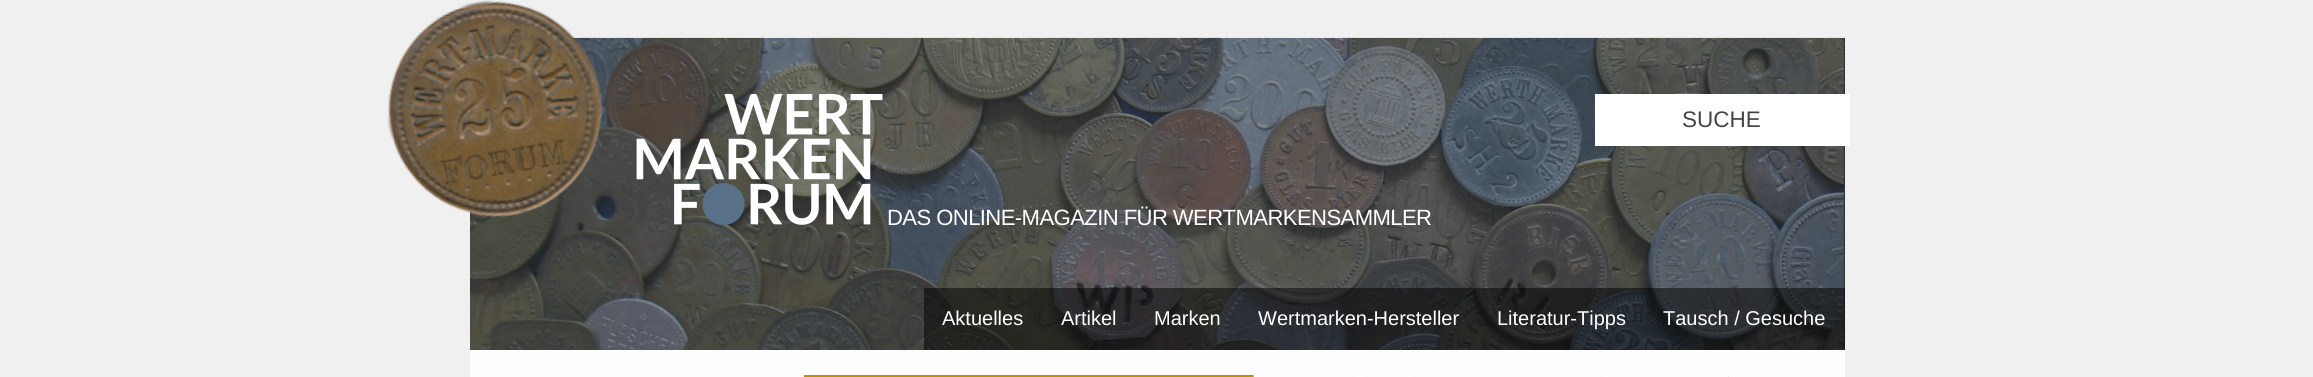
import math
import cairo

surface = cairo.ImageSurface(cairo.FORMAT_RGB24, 2313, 377)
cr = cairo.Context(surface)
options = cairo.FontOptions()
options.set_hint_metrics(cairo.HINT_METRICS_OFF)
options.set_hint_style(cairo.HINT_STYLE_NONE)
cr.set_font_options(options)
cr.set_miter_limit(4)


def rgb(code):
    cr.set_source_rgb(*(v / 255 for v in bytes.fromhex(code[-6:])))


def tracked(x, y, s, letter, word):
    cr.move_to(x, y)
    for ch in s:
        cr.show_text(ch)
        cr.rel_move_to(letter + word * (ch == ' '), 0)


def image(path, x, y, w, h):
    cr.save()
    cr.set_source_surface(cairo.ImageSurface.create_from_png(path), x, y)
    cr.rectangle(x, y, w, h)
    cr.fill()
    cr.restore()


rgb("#f0f0f0")
cr.paint()
rgb("#fefefe")
cr.rectangle(470, 350, 1375, 27)
cr.fill()
rgb("#2e3539")
cr.rectangle(470, 38, 1375, 312)
cr.fill()
image("img/2.png", 470, 37, 1374, 313)
rgb("#ffffff")
cr.rectangle(1595, 94, 255, 52)
cr.fill()
image("img/1.png", 387, 0, 216, 218)
image("img/3.png", 636, 94, 247, 131)
cr.set_source_rgba(0, 0, 0, 0.5)
cr.rectangle(924, 288, 119, 62)
cr.fill()
cr.rectangle(1043, 288, 92, 62)
cr.fill()
cr.rectangle(1135, 288, 105, 62)
cr.fill()
cr.rectangle(1240, 288, 239, 62)
cr.fill()
cr.rectangle(1479, 288, 166, 62)
cr.fill()
cr.rectangle(1645, 288, 200, 62)
cr.fill()
rgb("#dedede")
cr.rectangle(1253, 375, 1, 2)
cr.fill()
image("img/4.png", 803, 375, 451, 2)
cr.rectangle(1728, 375, 1, 2)
cr.fill()
image("img/5.png", 1279, 375, 450, 2)
cr.select_font_face("Liberation Sans")
cr.set_font_size(22.5)
rgb("#444444")
cr.move_to(1682, 127)
cr.show_text("SUCHE")
cr.set_font_size(22.1)
rgb("#ffffff")
tracked(887, 225, "DAS ONLINE-MAGAZIN FÜR WERTMARKENSAMMLER", -0.6, 0)
cr.set_font_size(20)
for x, y, s in [
    (942, 325, "Aktuelles"),
    (1061, 325, "Artikel"),
    (1154, 325, "Marken"),
    (1258, 325, "Wertmarken-Hersteller"),
    (1497, 325, "Literatur-Tipps"),
    (1663, 325, "Tausch / Gesuche"),
]:
    cr.move_to(x, y)
    cr.show_text(s)
surface.write_to_png("page.png")
